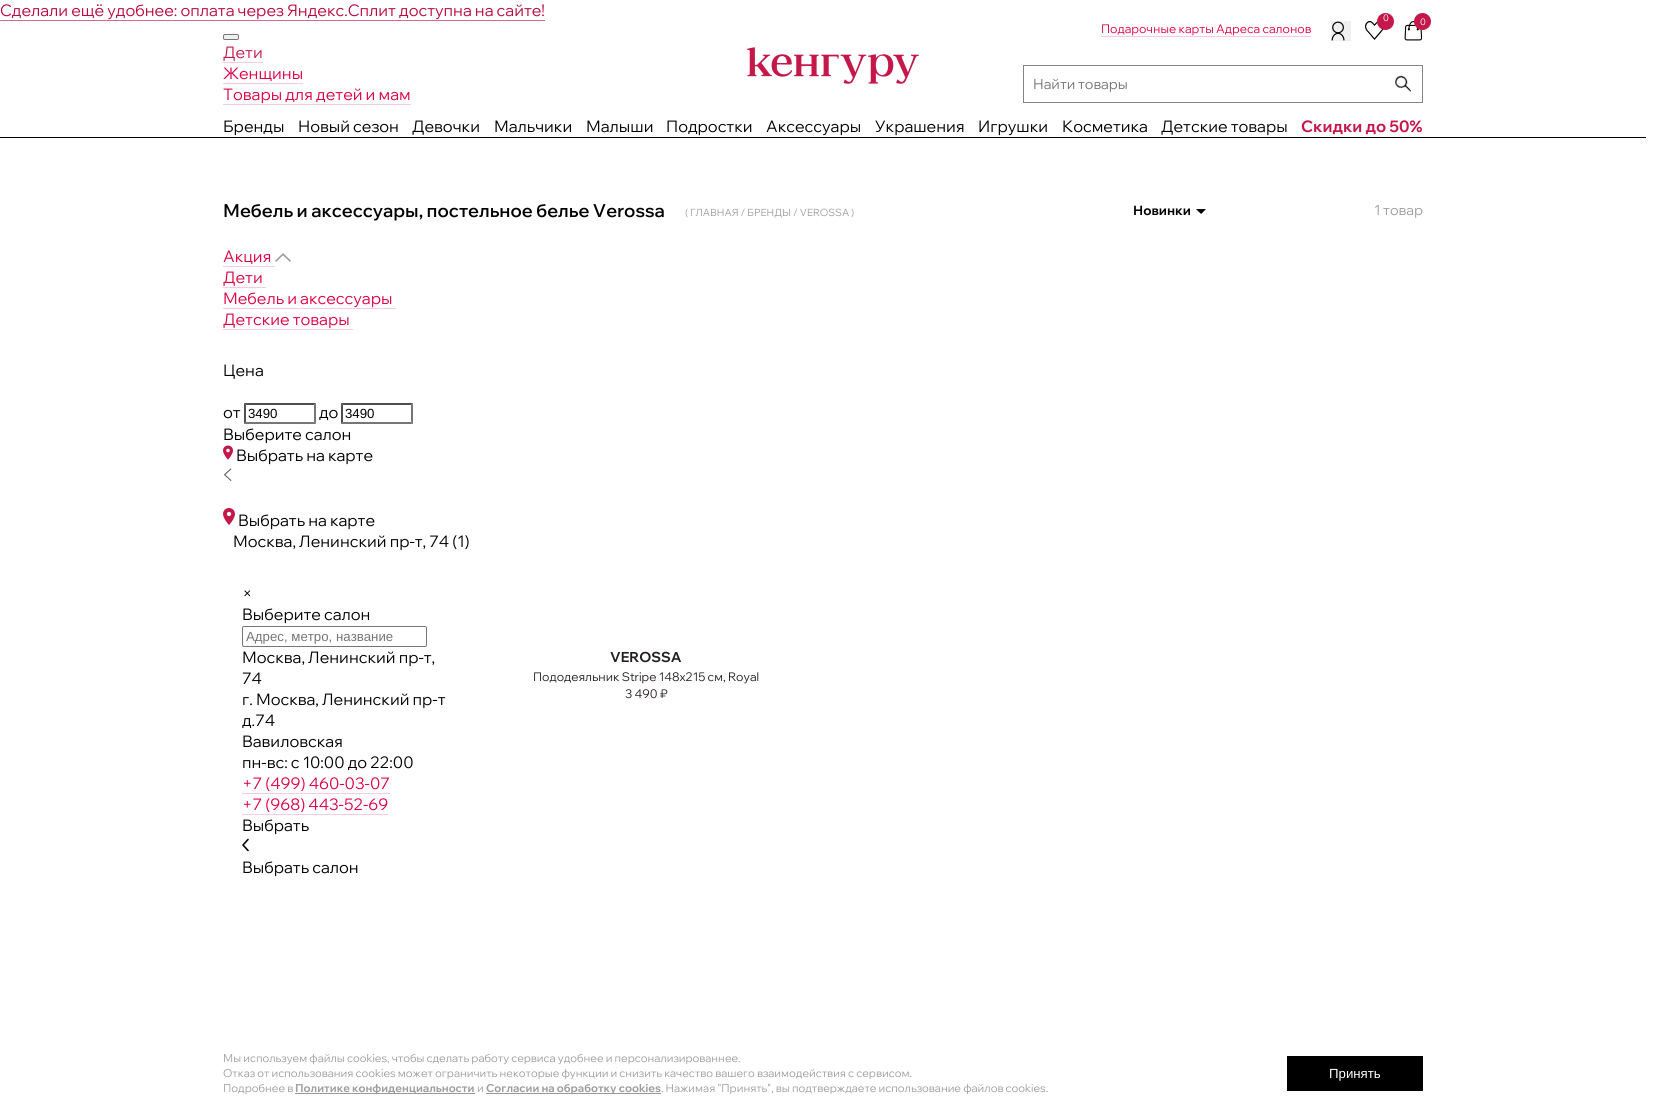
import math
import cairo

surface = cairo.ImageSurface(cairo.FORMAT_RGB24, 1661, 1101)
cr = cairo.Context(surface)
options = cairo.FontOptions()
options.set_hint_metrics(cairo.HINT_METRICS_OFF)
options.set_hint_style(cairo.HINT_STYLE_NONE)
cr.set_font_options(options)
cr.set_miter_limit(4)


def rgb(code):
    cr.set_source_rgb(*(v / 255 for v in bytes.fromhex(code[-6:])))


def rrect(x, y, w, h, r):
    cr.new_sub_path()
    for i, (u, v) in enumerate([(x + w - r, y + h - r), (x + r, y + h - r), (x + r, y + r), (x + w - r, y + r)]):
        cr.arc(u, v, r, i * math.pi / 2, (i + 1) * math.pi / 2)
    cr.close_path()


def image(path, x, y, w, h):
    cr.save()
    cr.set_source_surface(cairo.ImageSurface.create_from_png(path), x, y)
    cr.rectangle(x, y, w, h)
    cr.fill()
    cr.restore()


rgb("#ffffff")
cr.paint()
rgb("#d56b8c")
cr.rectangle(0, 20, 545, 1)
cr.fill()
rgb("#efefef")
rrect(223.5, 34.5, 15, 5, 1.5)
cr.fill_preserve()
rgb("#767676")
cr.set_line_width(1)
cr.stroke()
for x, y, w, h, color in [
    (223, 62, 40, 1, "#f8ccda"),
    (223, 83, 80, 1, "#f8ccda"),
    (223, 104, 188, 1, "#f8ccda"),
]:
    rgb(color)
    cr.rectangle(x, y, w, h)
    cr.fill()
image("img/1.png", 747, 47, 172, 37)
cr.rectangle(1101, 36, 210, 1)
cr.fill()
rgb("#efefef")
cr.rectangle(1331, 21, 20, 20)
cr.fill()
image("img/2.png", 1331, 21, 14, 20)
image("img/3.png", 1365, 21, 19, 19)
rgb("#c5184a")
cr.arc(1385.5, 21.5, 8.5, 0, 2 * math.pi)
cr.fill()
image("img/4.png", 1404, 21, 19, 20)
cr.arc(1422.5, 21.5, 8.5, 0, 2 * math.pi)
cr.fill()
cr.rectangle(1023.5, 65.5, 399, 37)
rgb("#848484")
cr.stroke()
image("img/5.png", 1395, 75, 16, 17)
rgb("#000000")
cr.rectangle(0, 137, 1646, 1)
cr.fill()
image("img/6.png", 1196, 209, 10, 5)
rgb("#f8ccda")
cr.rectangle(223, 266, 52, 1)
cr.fill()
image("img/7.png", 275, 253, 16, 9)
for x, y, w, h, color in [
    (223, 287, 43, 1, "#f8ccda"),
    (223, 308, 173, 1, "#f8ccda"),
    (223, 329, 130, 1, "#f8ccda"),
]:
    rgb(color)
    cr.rectangle(x, y, w, h)
    cr.fill()
rgb("#4f4f4f")
cr.new_path()
cr.move_to(244, 403)
cr.line_to(316, 403)
cr.line_to(314, 405)
cr.line_to(246, 405)
cr.close_path()
cr.fill()
rgb("#767676")
cr.new_path()
cr.move_to(316, 403)
cr.line_to(316, 424)
cr.line_to(314, 422)
cr.line_to(314, 405)
cr.close_path()
cr.fill()
cr.new_path()
cr.move_to(316, 424)
cr.line_to(244, 424)
cr.line_to(246, 422)
cr.line_to(314, 422)
cr.close_path()
cr.fill()
rgb("#4f4f4f")
cr.new_path()
cr.move_to(244, 424)
cr.line_to(244, 403)
cr.line_to(246, 405)
cr.line_to(246, 422)
cr.close_path()
cr.fill()
cr.new_path()
cr.move_to(341, 403)
cr.line_to(413, 403)
cr.line_to(411, 405)
cr.line_to(343, 405)
cr.close_path()
cr.fill()
rgb("#767676")
cr.new_path()
cr.move_to(413, 403)
cr.line_to(413, 424)
cr.line_to(411, 422)
cr.line_to(411, 405)
cr.close_path()
cr.fill()
cr.new_path()
cr.move_to(413, 424)
cr.line_to(341, 424)
cr.line_to(343, 422)
cr.line_to(411, 422)
cr.close_path()
cr.fill()
rgb("#4f4f4f")
cr.new_path()
cr.move_to(341, 424)
cr.line_to(341, 403)
cr.line_to(343, 405)
cr.line_to(343, 422)
cr.close_path()
cr.fill()
image("img/8.png", 223, 445, 10, 15)
image("img/9.png", 224, 468, 8, 13)
image("img/10.png", 223, 508, 12, 17)
rrect(242.5, 626.5, 184, 20, 1.5)
rgb("#767676")
cr.stroke()
rgb("#f8ccda")
cr.rectangle(242, 793, 148, 1)
cr.fill()
cr.rectangle(242, 814, 146, 1)
cr.fill()
cr.new_path()
cr.move_to(248, 850.5)
cr.line_to(243, 845)
cr.line_to(248, 839.5)
rgb("#000000")
cr.set_line_width(1.6)
cr.set_line_cap(cairo.LINE_CAP_ROUND)
cr.set_line_join(cairo.LINE_JOIN_ROUND)
cr.stroke()
for x, y, w, h, color in [
    (295, 1093, 180, 1, "#999999"),
    (486, 1093, 175, 1, "#999999"),
    (1287, 1056, 136, 35, "#000000"),
]:
    rgb(color)
    cr.rectangle(x, y, w, h)
    cr.fill()
cr.select_font_face("Wix Madefor Display")
cr.set_font_size(16)
rgb("#b9093f")
cr.move_to(0, 16)
cr.show_text("Сделали ещё удобнее: оплата через Яндекс.Сплит доступна на сайте!")
rgb("#c5184a")
cr.move_to(223, 58)
cr.show_text("Дети")
rgb("#dd0144")
cr.move_to(223, 79)
cr.show_text("Женщины")
cr.move_to(223, 100)
cr.show_text("Товары для детей и мам")
cr.set_font_size(12)
cr.move_to(1101, 33)
cr.show_text("Подарочные карты Адреса салонов")
cr.set_font_size(9)
rgb("#ffffff")
cr.move_to(1383, 21)
cr.show_text("0")
cr.move_to(1420, 25)
cr.show_text("0")
cr.set_font_size(14)
rgb("#757575")
cr.move_to(1033, 89)
cr.show_text("Найти товары")
cr.set_font_size(16)
rgb("#000000")
for x, y, s in [
    (223, 132, "Бренды"),
    (298, 132, "Новый сезон"),
    (412, 132, "Девочки"),
    (494, 132, "Мальчики"),
    (586, 132, "Малыши"),
    (666, 132, "Подростки"),
    (766, 132, "Аксессуары"),
    (875, 132, "Украшения"),
    (978, 132, "Игрушки"),
    (1062, 132, "Косметика"),
    (1161, 132, "Детские товары"),
]:
    cr.move_to(x, y)
    cr.show_text(s)
cr.select_font_face("Wix Madefor Display", cairo.FONT_SLANT_NORMAL, cairo.FONT_WEIGHT_BOLD)
rgb("#c5184a")
cr.move_to(1301, 132)
cr.show_text("Скидки до 50%")
cr.select_font_face("Wix Madefor Display SemiBold")
cr.set_font_size(18)
rgb("#000000")
cr.move_to(223, 217)
cr.show_text("Мебель и аксессуары, постельное белье Verossa")
cr.select_font_face("Wix Madefor Display")
cr.set_font_size(10)
rgb("#9d9d9d")
cr.move_to(685, 216)
cr.show_text("( ГЛАВНАЯ / БРЕНДЫ / VEROSSA )")
cr.select_font_face("Wix Madefor Display", cairo.FONT_SLANT_NORMAL, cairo.FONT_WEIGHT_BOLD)
cr.set_font_size(13)
rgb("#000000")
cr.move_to(1133, 215)
cr.show_text("Новинки")
cr.select_font_face("Wix Madefor Display")
cr.set_font_size(14)
rgb("#9d9d9d")
cr.move_to(1374, 215)
cr.show_text("1 товар")
cr.set_font_size(16)
rgb("#dd0144")
for x, y, s in [
    (223, 262, "Акция"),
    (223, 283, "Дети"),
    (223, 304, "Мебель и аксессуары"),
    (223, 325, "Детские товары"),
]:
    cr.move_to(x, y)
    cr.show_text(s)
rgb("#000000")
cr.move_to(223, 376)
cr.show_text("Цена")
cr.move_to(223, 418)
cr.show_text("от")
cr.select_font_face("Liberation Sans")
cr.set_font_size(13.25)
cr.move_to(248, 418)
cr.show_text("3490")
cr.select_font_face("Wix Madefor Display")
cr.set_font_size(16)
cr.move_to(319, 418)
cr.show_text("до")
cr.select_font_face("Liberation Sans")
cr.set_font_size(13.25)
cr.move_to(345, 418)
cr.show_text("3490")
cr.select_font_face("Wix Madefor Display")
cr.set_font_size(16)
for x, y, s in [
    (223, 440, "Выберите салон"),
    (236, 461, "Выбрать на карте"),
    (238, 526, "Выбрать на карте"),
    (233, 547, "Москва, Ленинский пр-т, 74 (1)"),
    (242, 599, "×"),
    (242, 620, "Выберите салон"),
]:
    cr.move_to(x, y)
    cr.show_text(s)
cr.select_font_face("Liberation Sans")
cr.set_font_size(13.25)
rgb("#757575")
cr.move_to(246, 641)
cr.show_text("Адрес, метро, название")
cr.select_font_face("Wix Madefor Display")
cr.set_font_size(16)
rgb("#000000")
for x, y, s in [
    (242, 663, "Москва, Ленинский пр-т,"),
    (242, 684, "74"),
    (242, 705, "г. Москва, Ленинский пр-т"),
    (242, 726, "д.74"),
    (242, 747, "Вавиловская"),
    (242, 768, "пн-вс: с 10:00 до 22:00"),
]:
    cr.move_to(x, y)
    cr.show_text(s)
rgb("#dd0144")
cr.move_to(242, 789)
cr.show_text("+7 (499) 460-03-07")
cr.move_to(242, 810)
cr.show_text("+7 (968) 443-52-69")
rgb("#000000")
cr.move_to(242, 831)
cr.show_text("Выбрать")
cr.move_to(242, 873)
cr.show_text("Выбрать салон")
cr.select_font_face("Wix Madefor Display", cairo.FONT_SLANT_NORMAL, cairo.FONT_WEIGHT_BOLD)
cr.set_font_size(14)
rgb("#241f1f")
cr.move_to(610, 662)
cr.show_text("VEROSSA")
cr.select_font_face("Wix Madefor Display")
cr.set_font_size(12)
cr.move_to(533, 681)
cr.show_text("Пододеяльник Stripe 148x215 см, Royal")
cr.move_to(625, 698)
cr.show_text("3 490 ₽")
cr.set_font_size(11)
rgb("#9d9d9d")
for x, y, s in [
    (223, 1062, "Мы используем файлы cookies, чтобы сделать работу сервиса удобнее и персонализированнее."),
    (223, 1077, "Отказ от использования cookies может ограничить некоторые функции и снизить качество вашего взаимодействия с сервисом."),
    (223, 1092, "Подробнее в"),
]:
    cr.move_to(x, y)
    cr.show_text(s)
cr.select_font_face("Wix Madefor Display", cairo.FONT_SLANT_NORMAL, cairo.FONT_WEIGHT_BOLD)
cr.move_to(295, 1092)
cr.show_text("Политике конфиденциальности")
cr.select_font_face("Wix Madefor Display")
cr.move_to(477, 1092)
cr.show_text("и")
cr.select_font_face("Wix Madefor Display", cairo.FONT_SLANT_NORMAL, cairo.FONT_WEIGHT_BOLD)
cr.move_to(486, 1092)
cr.show_text("Согласии на обработку cookies")
cr.select_font_face("Wix Madefor Display")
cr.move_to(661, 1092)
cr.show_text(". Нажимая \"Принять\", вы подтверждаете использование файлов cookies.")
cr.select_font_face("Liberation Sans")
cr.set_font_size(13.25)
rgb("#ffffff")
cr.move_to(1329, 1078)
cr.show_text("Принять")
surface.write_to_png("page.png")
